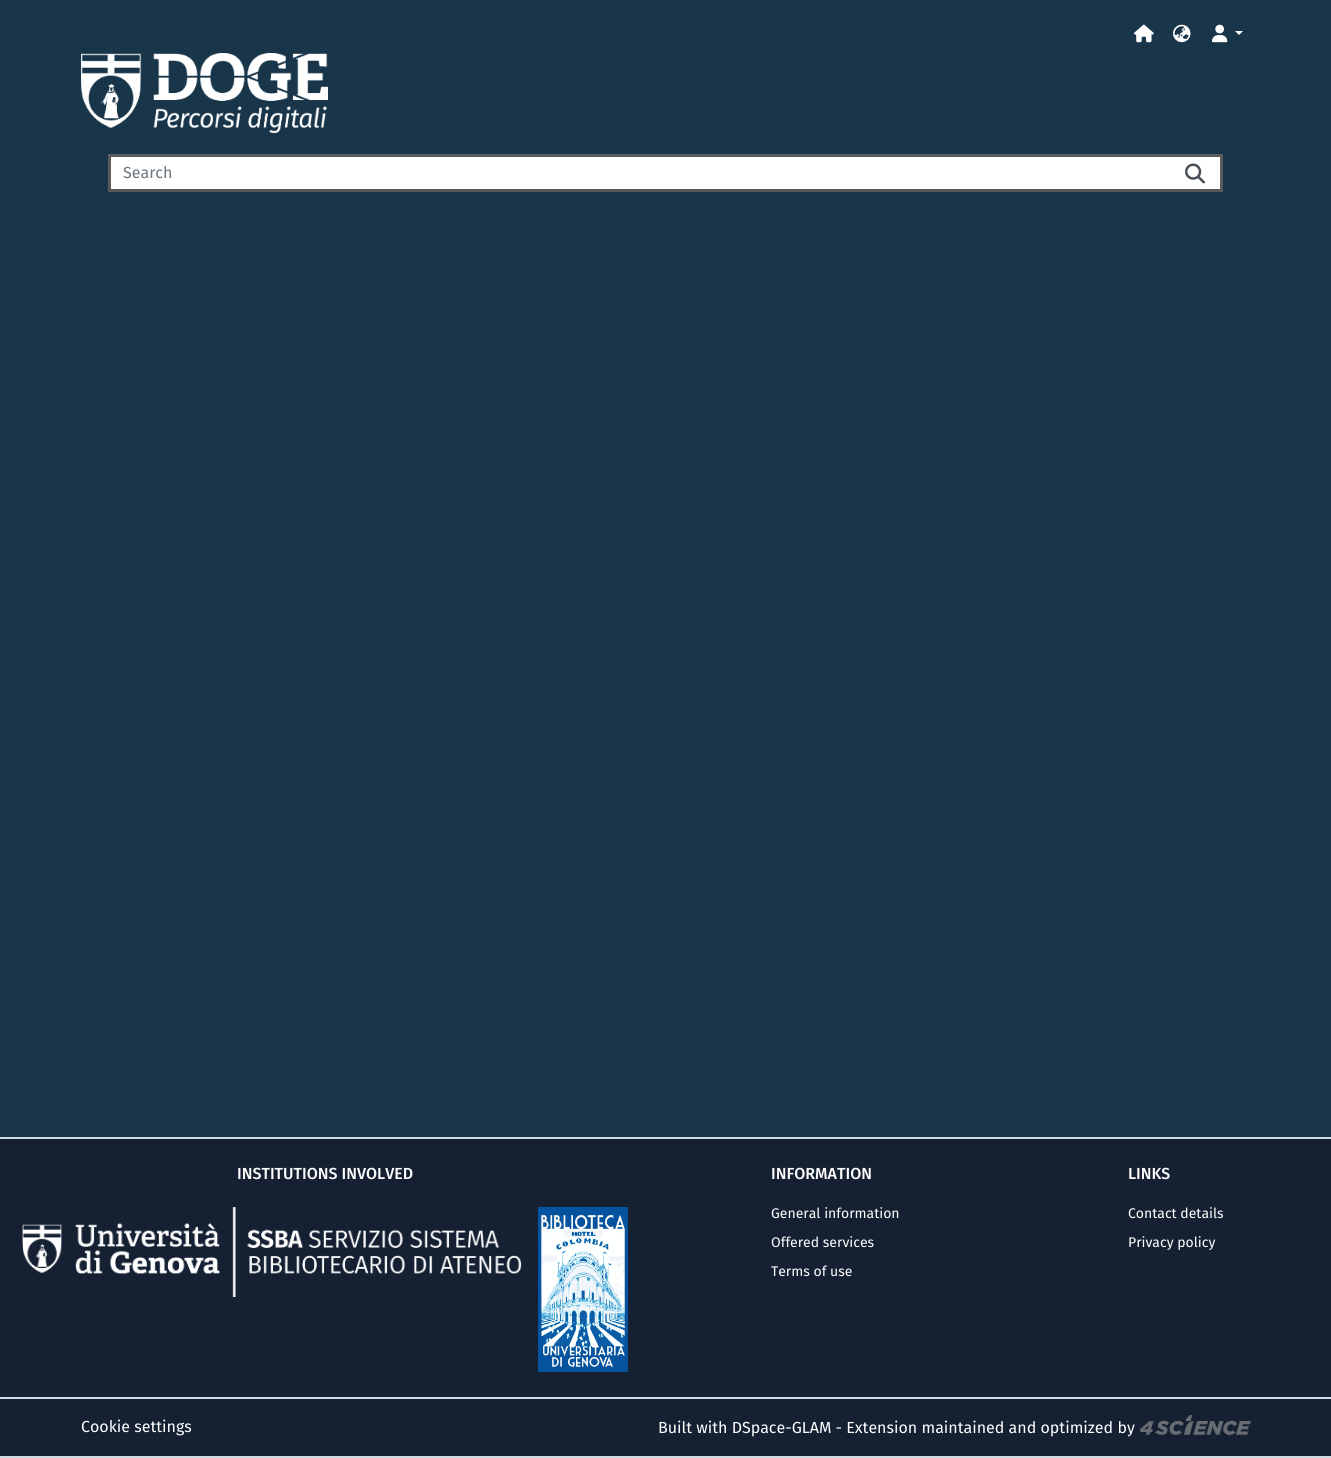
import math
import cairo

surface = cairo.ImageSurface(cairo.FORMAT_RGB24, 1331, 1458)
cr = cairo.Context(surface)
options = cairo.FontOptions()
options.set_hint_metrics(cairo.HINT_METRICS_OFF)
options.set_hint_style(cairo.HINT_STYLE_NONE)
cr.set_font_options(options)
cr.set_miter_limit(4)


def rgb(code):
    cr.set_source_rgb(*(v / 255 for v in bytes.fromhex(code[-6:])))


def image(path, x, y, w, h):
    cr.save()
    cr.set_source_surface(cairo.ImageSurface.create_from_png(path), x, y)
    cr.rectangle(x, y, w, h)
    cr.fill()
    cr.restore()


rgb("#18354a")
cr.paint()
image("img/1.png", 1134, 24, 20, 19)
image("img/2.png", 1173, 24, 18, 19)
image("img/3.png", 1212, 24, 16, 19)
rgb("#ffffff")
cr.new_path()
cr.move_to(1235, 31)
cr.line_to(1243, 31)
cr.line_to(1239, 35)
cr.close_path()
cr.fill()
image("img/4.png", 81, 53, 247, 80)
for x, y, w, h, color in [
    (111, 157, 1109, 32, "#ffffff"),
    (108, 154, 1115, 3, "#5a5a5a"),
    (1220, 154, 3, 38, "#5a5a5a"),
    (108, 189, 1115, 3, "#5a5a5a"),
]:
    rgb(color)
    cr.rectangle(x, y, w, h)
    cr.fill()
image("img/5.png", 1185, 163, 20, 21)
for x, y, w, h, color in [
    (108, 154, 3, 38, "#5a5a5a"),
    (0, 1139, 1331, 258, "#152033"),
    (0, 1137, 1331, 2, "#cddce2"),
    (0, 1397, 1331, 2, "#cddce2"),
]:
    rgb(color)
    cr.rectangle(x, y, w, h)
    cr.fill()
image("img/6.png", 22, 1207, 500, 90)
image("img/7.png", 538, 1207, 90, 165)
rgb("#152033")
cr.rectangle(0, 1399, 1331, 57)
cr.fill()
rgb("#cddce2")
cr.rectangle(0, 1456, 1331, 2)
cr.fill()
image("img/8.png", 1140, 1415, 111, 20)
cr.select_font_face("Fira Sans")
cr.set_font_size(16)
rgb("#6c757d")
cr.move_to(123, 178)
cr.show_text("Search")
cr.select_font_face("Fira Sans Medium")
rgb("#ffffff")
cr.move_to(237, 1179)
cr.show_text("INSTITUTIONS INVOLVED")
cr.move_to(771, 1179)
cr.show_text("INFORMATION")
cr.select_font_face("Fira Sans")
cr.set_font_size(14)
for x, y, s in [
    (771, 1218, "General information"),
    (771, 1247, "Offered services"),
    (771, 1276, "Terms of use"),
]:
    cr.move_to(x, y)
    cr.show_text(s)
cr.select_font_face("Fira Sans Medium")
cr.set_font_size(16)
cr.move_to(1128, 1179)
cr.show_text("LINKS")
cr.select_font_face("Fira Sans")
cr.set_font_size(14)
cr.move_to(1128, 1218)
cr.show_text("Contact details")
cr.move_to(1128, 1247)
cr.show_text("Privacy policy")
cr.set_font_size(16)
cr.move_to(81, 1432)
cr.show_text("Cookie settings")
cr.move_to(658, 1433)
cr.show_text("Built with DSpace-GLAM - Extension maintained and optimized by")
surface.write_to_png("page.png")
